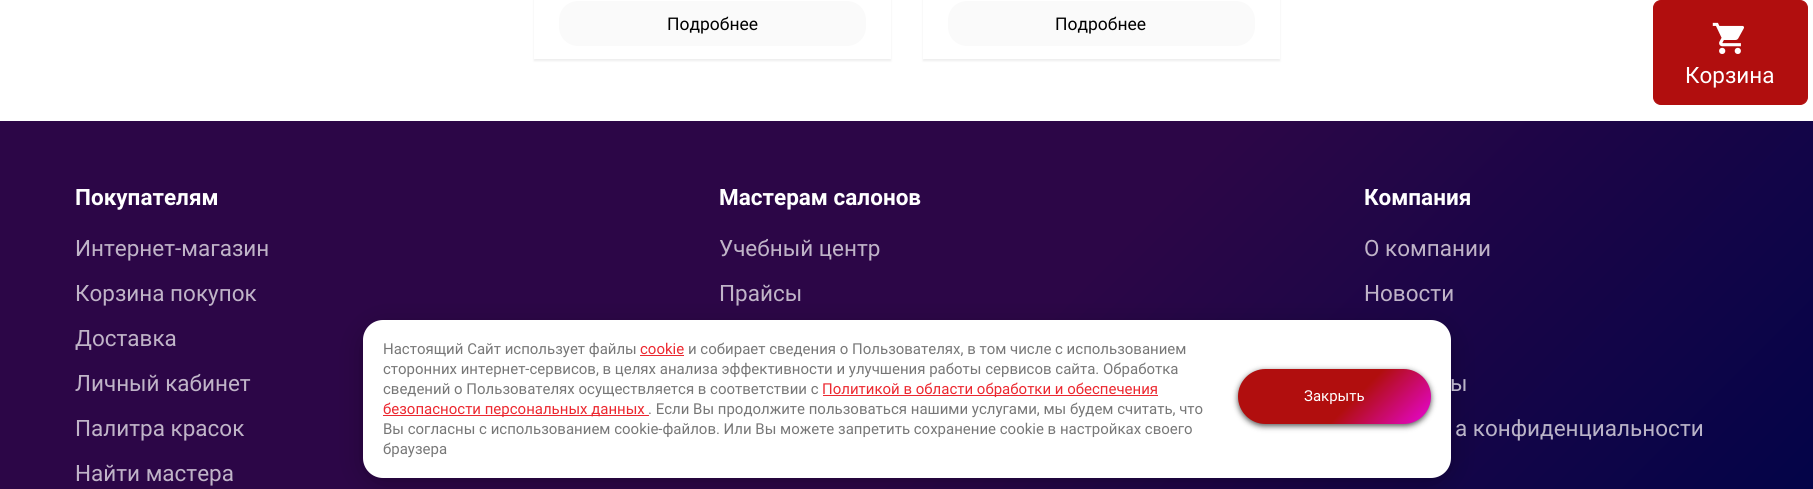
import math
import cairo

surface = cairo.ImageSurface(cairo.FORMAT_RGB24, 1813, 489)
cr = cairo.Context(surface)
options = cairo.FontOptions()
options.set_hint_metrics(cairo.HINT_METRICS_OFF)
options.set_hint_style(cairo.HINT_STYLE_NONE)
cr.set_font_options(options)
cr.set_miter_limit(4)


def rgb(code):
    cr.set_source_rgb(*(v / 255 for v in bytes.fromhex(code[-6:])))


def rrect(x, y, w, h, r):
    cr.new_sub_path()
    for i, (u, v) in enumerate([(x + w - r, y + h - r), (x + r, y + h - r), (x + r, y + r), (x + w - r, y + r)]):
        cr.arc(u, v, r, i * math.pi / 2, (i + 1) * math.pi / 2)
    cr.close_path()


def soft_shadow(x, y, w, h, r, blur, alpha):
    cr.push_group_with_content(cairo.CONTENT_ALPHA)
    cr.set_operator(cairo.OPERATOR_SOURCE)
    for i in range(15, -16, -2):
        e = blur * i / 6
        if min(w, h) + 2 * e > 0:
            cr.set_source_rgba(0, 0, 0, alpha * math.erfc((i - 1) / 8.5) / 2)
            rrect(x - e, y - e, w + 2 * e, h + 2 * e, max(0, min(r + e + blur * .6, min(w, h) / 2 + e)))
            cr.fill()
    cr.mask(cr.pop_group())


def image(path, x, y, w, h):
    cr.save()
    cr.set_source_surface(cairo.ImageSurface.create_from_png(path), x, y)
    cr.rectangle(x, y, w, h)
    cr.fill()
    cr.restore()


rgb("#ffffff")
cr.paint()
rgb("#eeeeee")
soft_shadow(534, -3, 357, 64, 0, 1, 1)
rgb("#ffffff")
cr.rectangle(534, 0, 357, 59)
cr.fill()
rgb("#fafafa")
rrect(559, 1, 307, 45, 19)
cr.fill()
rgb("#eeeeee")
soft_shadow(923, -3, 357, 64, 0, 1, 1)
rgb("#ffffff")
cr.rectangle(923, 0, 357, 59)
cr.fill()
rgb("#fafafa")
rrect(948, 1, 307, 45, 19)
cr.fill()
rgb("#b10e0e")
rrect(1653.5, 0.5, 154, 104, 7.5)
cr.fill_preserve()
cr.set_line_width(1)
cr.stroke()
image("img/1.png", 1712, 22, 32, 32)
gradient = cairo.LinearGradient(331, -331, 1483, 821)
gradient.add_color_stop_rgba(0.59, 0.173, 0.024, 0.278, 1)
gradient.add_color_stop_rgba(1, 0.012, 0.016, 0.282, 1)
cr.set_source(gradient)
cr.rectangle(0, 121, 1813, 368)
cr.fill()
rgb("#000000")
soft_shadow(366, 330, 1082, 150, 16, 14.5, 0.3)
rgb("#ffffff")
rrect(363, 320, 1088, 158, 20)
cr.fill()
for x, y, w, h, color in [
    (640, 355, 44, 1, "#ec2830"),
    (823, 395, 335, 1, "#ec2830"),
    (383, 415, 266, 1, "#ec2830"),
]:
    rgb(color)
    cr.rectangle(x, y, w, h)
    cr.fill()
rgb("#555555")
soft_shadow(1238, 371, 193, 55, 27.5, 3, 1)
gradient = cairo.LinearGradient(1272, 334, 1397, 458)
gradient.add_color_stop_rgba(0.59, 0.694, 0.055, 0.055, 1)
gradient.add_color_stop_rgba(1, 0.906, 0.024, 0.839, 1)
cr.set_source(gradient)
rrect(1238, 369, 193, 55, 27.5)
cr.fill()
cr.select_font_face("Roboto")
cr.set_font_size(17.5)
rgb("#000000")
cr.move_to(667, 30)
cr.show_text("Подробнее")
cr.move_to(1055, 30)
cr.show_text("Подробнее")
cr.set_font_size(22.5)
rgb("#ffffff")
cr.move_to(1685, 83)
cr.show_text("Корзина")
cr.select_font_face("Roboto", cairo.FONT_SLANT_NORMAL, cairo.FONT_WEIGHT_BOLD)
cr.move_to(75, 205)
cr.show_text("Покупателям")
cr.select_font_face("Roboto")
rgb("#c0b4c8")
for x, y, s in [
    (75, 256, "Интернет-магазин"),
    (75, 301, "Корзина покупок"),
    (75, 346, "Доставка"),
    (75, 391, "Личный кабинет"),
    (75, 436, "Палитра красок"),
    (75, 481, "Найти мастера"),
]:
    cr.move_to(x, y)
    cr.show_text(s)
cr.select_font_face("Roboto", cairo.FONT_SLANT_NORMAL, cairo.FONT_WEIGHT_BOLD)
rgb("#ffffff")
cr.move_to(719, 205)
cr.show_text("Мастерам салонов")
cr.select_font_face("Roboto")
rgb("#c0b4c8")
cr.move_to(719, 256)
cr.show_text("Учебный центр")
cr.move_to(719, 301)
cr.show_text("Прайсы")
cr.select_font_face("Roboto", cairo.FONT_SLANT_NORMAL, cairo.FONT_WEIGHT_BOLD)
rgb("#ffffff")
cr.move_to(1364, 205)
cr.show_text("Компания")
cr.select_font_face("Roboto")
rgb("#c0b4c8")
cr.move_to(1364, 256)
cr.show_text("О компании")
cr.move_to(1364, 301)
cr.show_text("Новости")
rgb("#bab4c8")
cr.move_to(1450, 391)
cr.show_text("ы")
cr.move_to(1455, 436)
cr.show_text("а конфиденциальности")
cr.set_font_size(15)
rgb("#777777")
cr.move_to(383, 354)
cr.show_text("Настоящий Сайт использует файлы")
rgb("#ec2830")
cr.move_to(640, 354)
cr.show_text("cookie")
rgb("#777777")
for x, y, s in [
    (688, 354, "и собирает сведения о Пользователях, в том числе с использованием"),
    (383, 374, "сторонних интернет-сервисов, в целях анализа эффективности и улучшения работы сервисов сайта. Обработка"),
    (383, 394, "сведений о Пользователях осуществляется в соответствии с"),
]:
    cr.move_to(x, y)
    cr.show_text(s)
rgb("#ec2830")
cr.move_to(822, 394)
cr.show_text("Политикой в области обработки и обеспечения")
cr.move_to(383, 414)
cr.show_text("безопасности персональных данных")
rgb("#777777")
for x, y, s in [
    (648, 414, ". Если Вы продолжите пользоваться нашими услугами, мы будем считать, что"),
    (383, 434, "Вы согласны с использованием cookie-файлов. Или Вы можете запретить сохранение cookie в настройках своего"),
    (383, 454, "браузера"),
]:
    cr.move_to(x, y)
    cr.show_text(s)
rgb("#ffffff")
cr.move_to(1304, 401)
cr.show_text("Закрыть")
surface.write_to_png("page.png")
